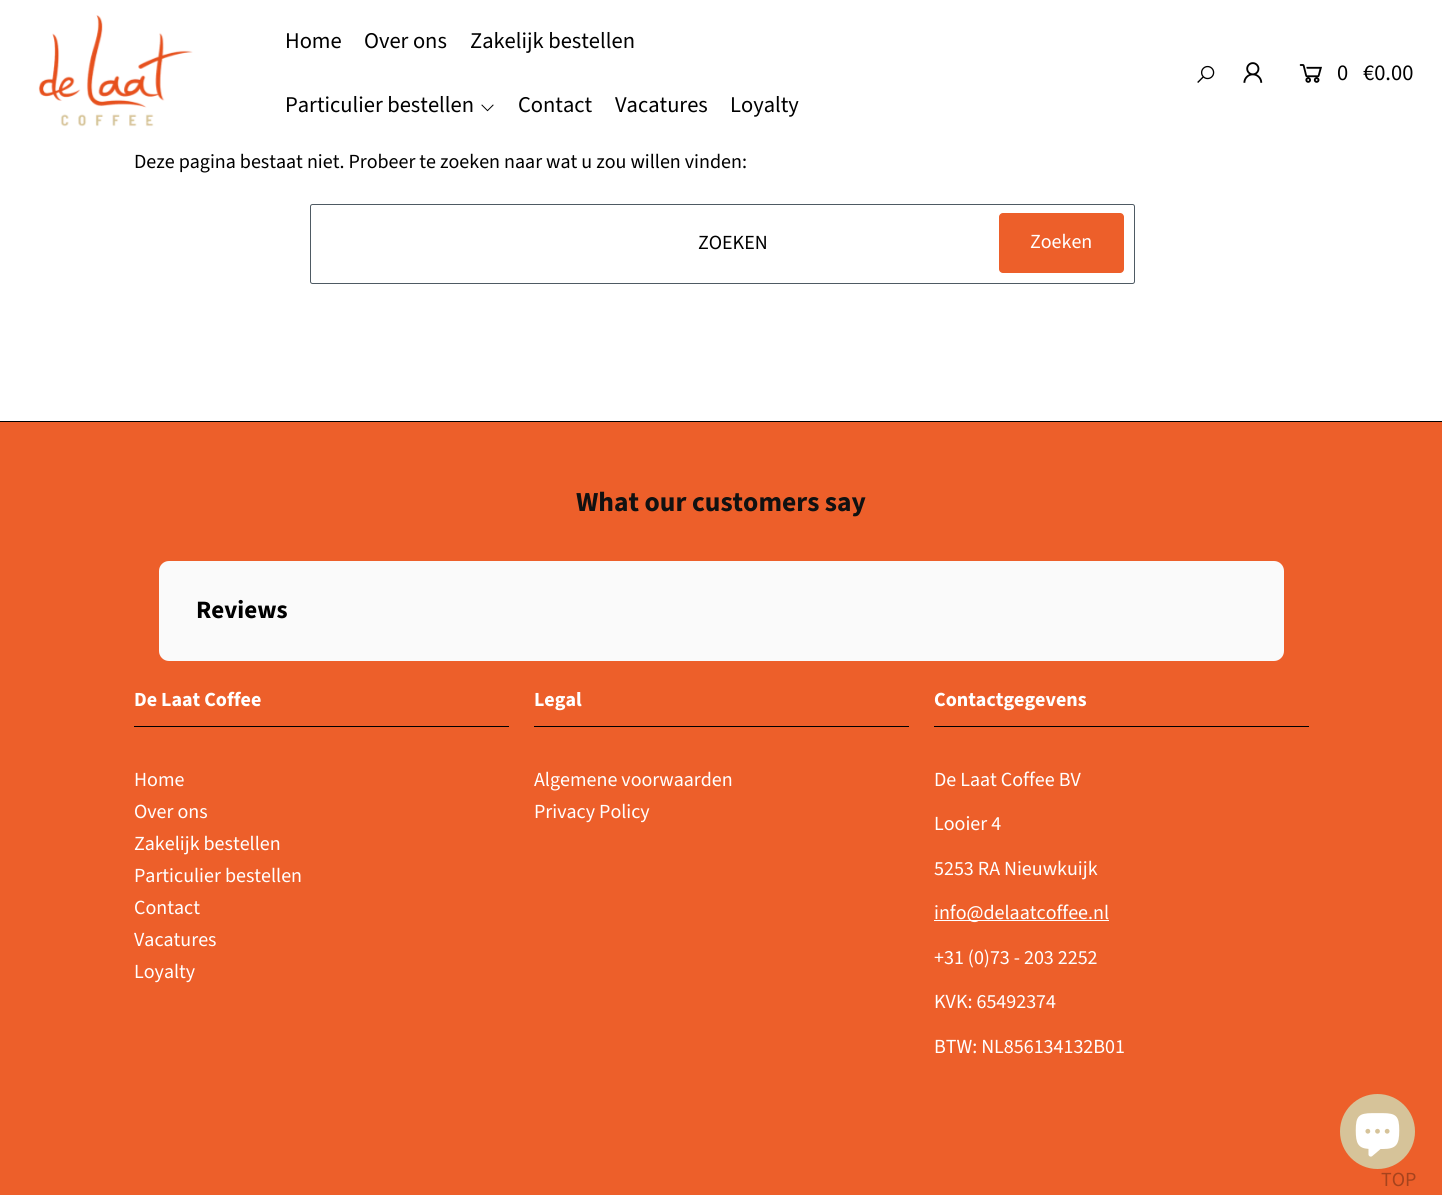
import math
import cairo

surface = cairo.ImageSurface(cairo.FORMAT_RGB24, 1442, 1195)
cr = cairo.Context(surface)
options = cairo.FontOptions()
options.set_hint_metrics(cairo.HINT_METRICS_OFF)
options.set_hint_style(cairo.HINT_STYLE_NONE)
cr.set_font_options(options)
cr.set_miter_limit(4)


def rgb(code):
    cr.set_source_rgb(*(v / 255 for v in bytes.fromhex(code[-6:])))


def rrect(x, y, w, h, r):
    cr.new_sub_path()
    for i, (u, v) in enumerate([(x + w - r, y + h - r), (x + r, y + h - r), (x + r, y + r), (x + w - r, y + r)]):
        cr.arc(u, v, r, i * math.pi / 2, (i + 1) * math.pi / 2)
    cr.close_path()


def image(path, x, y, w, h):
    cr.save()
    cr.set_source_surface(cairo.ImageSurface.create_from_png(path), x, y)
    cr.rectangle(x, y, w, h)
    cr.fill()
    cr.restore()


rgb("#ffffff")
cr.paint()
image("img/1.png", 38, 15, 155, 112)
image("img/2.png", 481, 104, 13, 8)
image("img/3.png", 1197, 65, 18, 18)
image("img/4.png", 1243, 62, 20, 21)
image("img/5.png", 1299, 64, 23, 19)
rrect(310.5, 204.5, 824, 79, 2)
rgb("#4e5a63")
cr.set_line_width(1)
cr.stroke()
rgb("#ed5f2a")
rrect(999, 213, 125, 60, 4)
cr.fill()
cr.rectangle(0, 422, 1442, 773)
cr.fill()
rgb("#000000")
cr.rectangle(0, 421, 1442, 1)
cr.fill()
rgb("#fafafa")
rrect(159, 561, 1125, 100, 10)
cr.fill()
for x, y, w, h, color in [
    (134, 726, 375, 1, "#000000"),
    (534, 726, 375, 1, "#000000"),
    (934, 726, 375, 1, "#000000"),
    (934, 920, 175, 1, "#ffffff"),
]:
    rgb(color)
    cr.rectangle(x, y, w, h)
    cr.fill()
image("img/7.png", 1408, 1149, 3, 3)
rgb("#d6c399")
cr.arc(1377.5, 1131.5, 37.5, 0, 2 * math.pi)
cr.fill()
image("img/6.png", 1355, 1113, 45, 44)
cr.select_font_face("Source Sans Pro")
cr.set_font_size(22.5)
rgb("#000000")
for x, y, s in [
    (285, 48, "Home"),
    (364, 48, "Over ons"),
    (470, 48, "Zakelijk bestellen"),
    (285, 112, "Particulier bestellen"),
    (518, 112, "Contact"),
    (615, 112, "Vacatures"),
    (730, 112, "Loyalty"),
    (1337, 80, "0"),
    (1363, 80, "€0.00"),
]:
    cr.move_to(x, y)
    cr.show_text(s)
cr.set_font_size(20)
cr.move_to(134, 168)
cr.show_text("Deze pagina bestaat niet. Probeer te zoeken naar wat u zou willen vinden:")
cr.move_to(698, 249)
cr.show_text("ZOEKEN")
rgb("#ffffff")
cr.move_to(1030, 248)
cr.show_text("Zoeken")
cr.select_font_face("Source Sans Pro", cairo.FONT_SLANT_NORMAL, cairo.FONT_WEIGHT_BOLD)
cr.set_font_size(27.5)
rgb("#111111")
cr.move_to(576, 511)
cr.show_text("What our customers say")
cr.set_font_size(25)
rgb("#000000")
cr.move_to(196, 618)
cr.show_text("Reviews")
cr.set_font_size(20)
rgb("#ffffff")
cr.move_to(134, 706)
cr.show_text("De Laat Coffee")
cr.select_font_face("Source Sans Pro")
for x, y, s in [
    (134, 786, "Home"),
    (134, 818, "Over ons"),
    (134, 850, "Zakelijk bestellen"),
    (134, 882, "Particulier bestellen"),
    (134, 914, "Contact"),
    (134, 946, "Vacatures"),
    (134, 978, "Loyalty"),
]:
    cr.move_to(x, y)
    cr.show_text(s)
cr.select_font_face("Source Sans Pro", cairo.FONT_SLANT_NORMAL, cairo.FONT_WEIGHT_BOLD)
cr.move_to(534, 706)
cr.show_text("Legal")
cr.select_font_face("Source Sans Pro")
cr.move_to(534, 786)
cr.show_text("Algemene voorwaarden")
cr.move_to(534, 818)
cr.show_text("Privacy Policy")
cr.select_font_face("Source Sans Pro", cairo.FONT_SLANT_NORMAL, cairo.FONT_WEIGHT_BOLD)
cr.move_to(934, 706)
cr.show_text("Contactgegevens")
cr.select_font_face("Source Sans Pro")
for x, y, s in [
    (934, 786, "De Laat Coffee BV"),
    (934, 830, "Looier 4"),
    (934, 875, "5253 RA Nieuwkuijk"),
    (934, 919, "info@delaatcoffee.nl"),
    (934, 964, "+31 (0)73 - 203 2252"),
    (934, 1008, "KVK: 65492374"),
    (934, 1053, "BTW: NL856134132B01"),
]:
    cr.move_to(x, y)
    cr.show_text(s)
rgb("#a6431d")
cr.move_to(1381, 1186)
cr.show_text("TOP")
surface.write_to_png("page.png")
